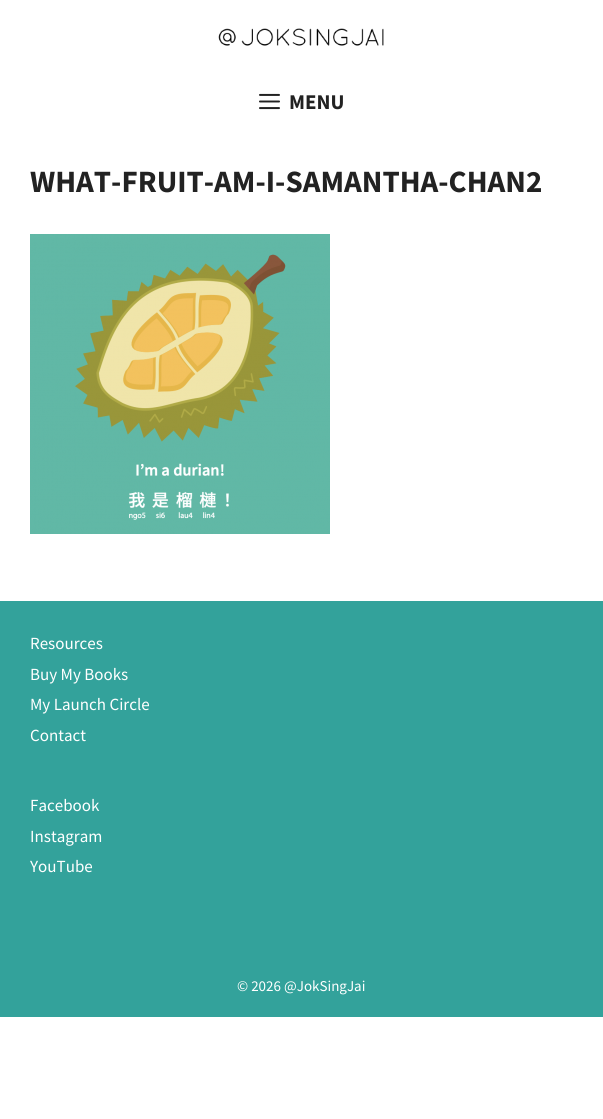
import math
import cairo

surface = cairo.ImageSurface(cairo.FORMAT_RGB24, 603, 1119)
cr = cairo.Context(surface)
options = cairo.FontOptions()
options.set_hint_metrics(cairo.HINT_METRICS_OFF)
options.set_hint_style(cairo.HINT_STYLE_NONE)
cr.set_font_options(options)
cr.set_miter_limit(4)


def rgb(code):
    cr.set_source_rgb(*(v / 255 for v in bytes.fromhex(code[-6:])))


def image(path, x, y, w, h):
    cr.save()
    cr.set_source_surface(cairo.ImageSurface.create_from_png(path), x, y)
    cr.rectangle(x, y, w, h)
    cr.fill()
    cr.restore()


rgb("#ffffff")
cr.paint()
image("img/1.png", 218, 28, 166, 18)
image("img/2.png", 259, 93, 21, 17)
image("img/3.png", 30, 234, 300, 300)
rgb("#33a29b")
cr.rectangle(0, 601, 603, 416)
cr.fill()
cr.select_font_face("Source Sans Pro", cairo.FONT_SLANT_NORMAL, cairo.FONT_WEIGHT_BOLD)
cr.set_font_size(21)
rgb("#222222")
cr.move_to(289, 109)
cr.show_text("MENU")
cr.set_font_size(31)
cr.move_to(30, 192)
cr.show_text("WHAT-FRUIT-AM-I-SAMANTHA-CHAN2")
cr.select_font_face("Source Sans Pro")
cr.set_font_size(17)
rgb("#ffffff")
for x, y, s in [
    (30, 649, "Resources"),
    (30, 680, "Buy My Books"),
    (30, 710, "My Launch Circle"),
    (30, 741, "Contact"),
    (30, 811, "Facebook"),
    (30, 842, "Instagram"),
    (30, 872, "YouTube"),
]:
    cr.move_to(x, y)
    cr.show_text(s)
cr.set_font_size(15)
cr.move_to(237, 991)
cr.show_text("© 2026 @JokSingJai")
surface.write_to_png("page.png")
